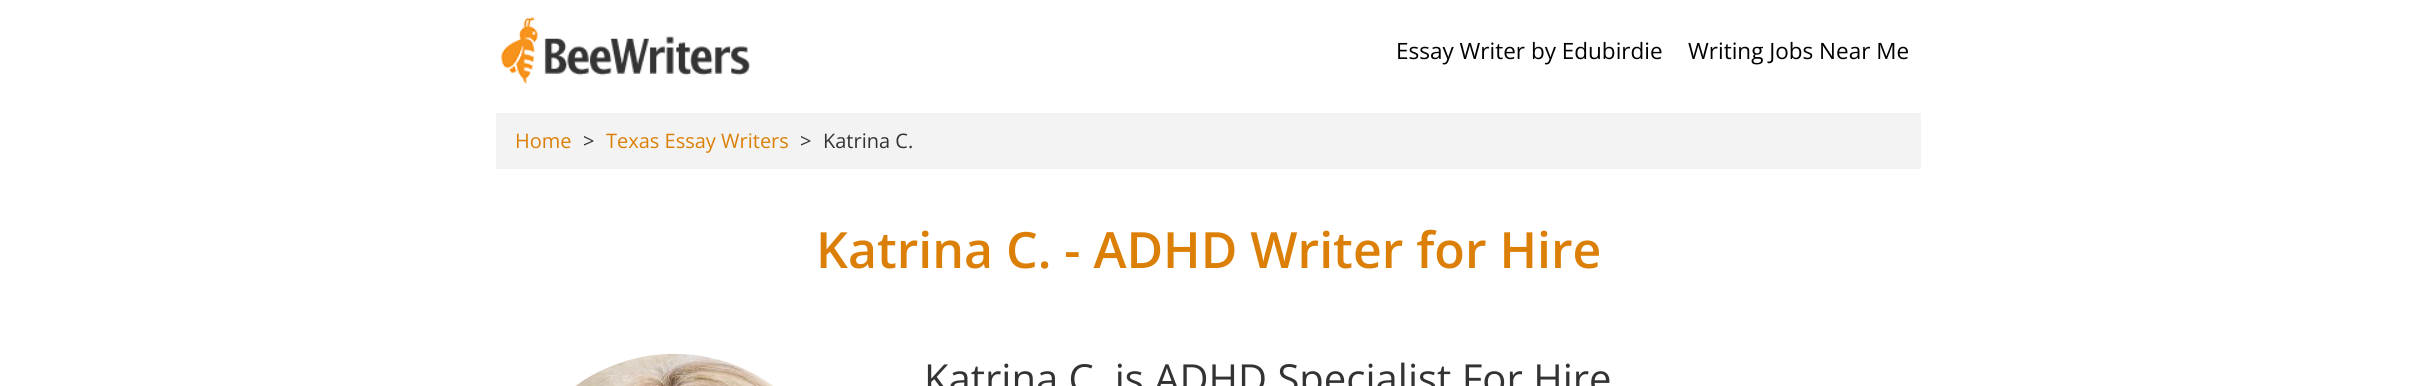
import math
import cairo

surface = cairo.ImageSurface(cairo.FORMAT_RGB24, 2417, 386)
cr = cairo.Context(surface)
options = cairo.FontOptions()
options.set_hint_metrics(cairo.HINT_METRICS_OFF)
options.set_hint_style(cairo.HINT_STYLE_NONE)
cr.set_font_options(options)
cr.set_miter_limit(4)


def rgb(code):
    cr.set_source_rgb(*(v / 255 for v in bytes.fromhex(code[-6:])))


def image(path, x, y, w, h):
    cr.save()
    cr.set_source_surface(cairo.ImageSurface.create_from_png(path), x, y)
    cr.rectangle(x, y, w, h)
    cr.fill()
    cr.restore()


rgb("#ffffff")
cr.paint()
image("img/1.png", 501, 17, 250, 67)
rgb("#f3f3f3")
cr.rectangle(496, 113, 1425, 56)
cr.fill()
image("img/2.png", 575, 353, 198, 33)
cr.select_font_face("Open Sans")
cr.set_font_size(22.5)
rgb("#000000")
cr.move_to(1396, 59)
cr.show_text("Essay Writer by Edubirdie")
cr.move_to(1688, 59)
cr.show_text("Writing Jobs Near Me")
cr.set_font_size(20)
rgb("#db7f06")
cr.move_to(515, 148)
cr.show_text("Home")
rgb("#333333")
cr.move_to(583, 148)
cr.show_text(">")
rgb("#db7f06")
cr.move_to(606, 148)
cr.show_text("Texas Essay Writers")
rgb("#333333")
cr.move_to(800, 148)
cr.show_text(">")
cr.move_to(823, 148)
cr.show_text("Katrina C.")
cr.select_font_face("Open Sans SemiBold")
cr.set_font_size(50)
rgb("#db7f06")
cr.move_to(816, 268)
cr.show_text("Katrina C. - ADHD Writer for Hire")
cr.select_font_face("Open Sans")
cr.set_font_size(40)
rgb("#333333")
cr.move_to(924, 393)
cr.show_text("Katrina C. is ADHD Specialist For Hire")
surface.write_to_png("page.png")
